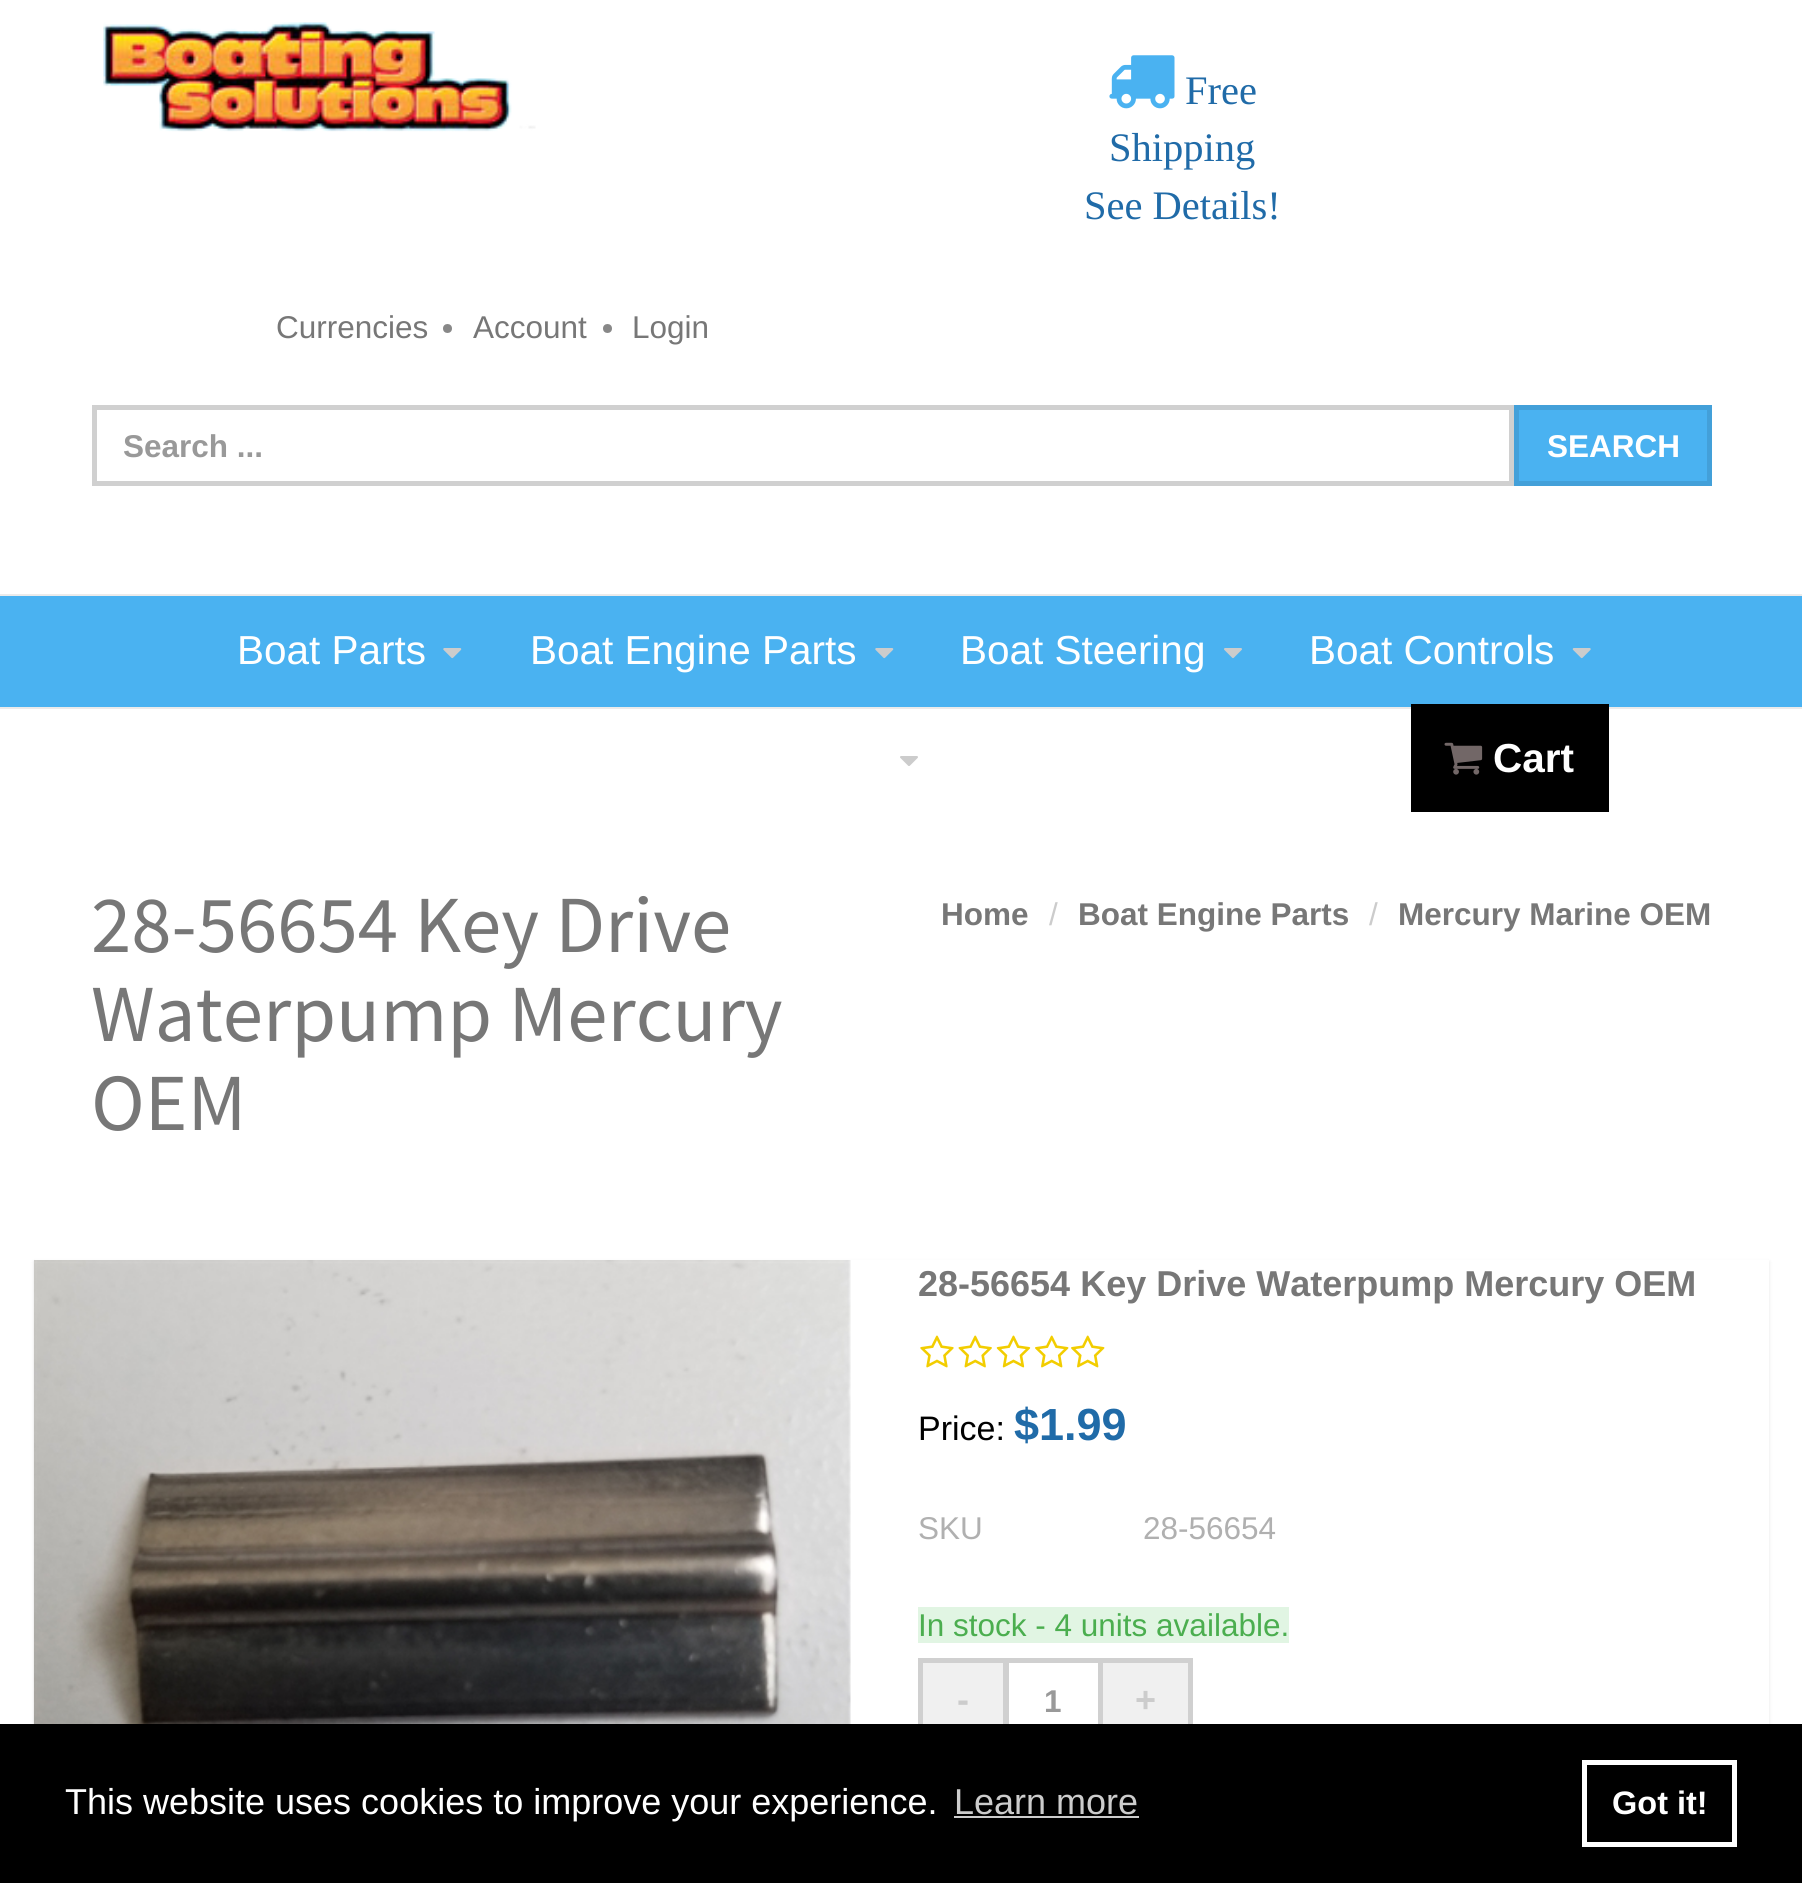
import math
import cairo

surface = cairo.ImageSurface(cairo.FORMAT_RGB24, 1802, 1883)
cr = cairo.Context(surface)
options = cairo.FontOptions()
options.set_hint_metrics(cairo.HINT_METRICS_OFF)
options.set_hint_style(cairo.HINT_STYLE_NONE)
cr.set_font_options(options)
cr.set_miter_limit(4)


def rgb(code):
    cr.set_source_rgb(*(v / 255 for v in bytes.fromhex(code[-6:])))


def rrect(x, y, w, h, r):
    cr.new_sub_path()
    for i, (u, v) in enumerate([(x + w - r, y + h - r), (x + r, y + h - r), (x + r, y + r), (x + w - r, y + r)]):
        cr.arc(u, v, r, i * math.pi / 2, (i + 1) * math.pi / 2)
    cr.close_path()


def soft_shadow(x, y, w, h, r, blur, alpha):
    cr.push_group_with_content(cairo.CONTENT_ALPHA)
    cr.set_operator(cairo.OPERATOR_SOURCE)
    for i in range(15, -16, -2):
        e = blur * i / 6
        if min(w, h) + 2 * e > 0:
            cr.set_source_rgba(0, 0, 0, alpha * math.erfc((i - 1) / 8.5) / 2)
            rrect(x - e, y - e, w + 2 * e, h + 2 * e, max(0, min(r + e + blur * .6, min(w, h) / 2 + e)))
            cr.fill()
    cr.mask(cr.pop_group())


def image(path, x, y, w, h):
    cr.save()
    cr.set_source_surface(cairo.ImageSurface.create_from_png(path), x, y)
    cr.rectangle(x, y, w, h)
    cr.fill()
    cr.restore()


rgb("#ffffff")
cr.paint()
image("img/1.png", 103, 22, 433, 110)
image("img/2.png", 1109, 55, 66, 54)
rgb("#888888")
cr.arc(447.5, 328.5, 4.5, 0, 2 * math.pi)
cr.fill()
cr.arc(607.5, 328.5, 4.5, 0, 2 * math.pi)
cr.fill()
rgb("#ebebeb")
cr.rectangle(0, 594, 1802, 2)
cr.fill()
cr.rectangle(94.5, 407.5, 1417, 76)
rgb("#d0d0d0")
cr.set_line_width(5)
cr.stroke()
rgb("#4ab2f1")
cr.rectangle(1516.5, 407.5, 193, 76)
cr.fill_preserve()
rgb("#43a0d9")
cr.stroke()
rgb("#4ab2f1")
cr.rectangle(0, 596, 1802, 111)
cr.fill()
rgb("#ebebeb")
cr.rectangle(0, 707, 1802, 2)
cr.fill()
image("img/3.png", 443, 648, 19, 11)
image("img/3.png", 875, 648, 19, 11)
image("img/4.png", 1224, 648, 18, 11)
image("img/5.png", 1572, 648, 19, 11)
image("img/6.png", 900, 756, 18, 10)
rgb("#000000")
cr.rectangle(1411, 704, 198, 108)
cr.fill()
image("img/7.png", 1444, 742, 39, 33)
rgb("#000000")
soft_shadow(34, 1262, 1735, 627, 0, 2, 0.1)
rgb("#ffffff")
cr.rectangle(850, 1260, 919, 464)
cr.fill()
image("img/8.png", 33, 1260, 818, 464)
image("img/9.png", 920, 1335, 34, 33)
image("img/10.png", 958, 1335, 34, 33)
image("img/11.png", 996, 1335, 35, 33)
image("img/12.png", 1035, 1335, 34, 33)
image("img/12.png", 1071, 1335, 34, 33)
rgb("#e1f5e3")
cr.rectangle(918, 1607, 371, 36)
cr.fill()
rgb("#f0f0f0")
cr.rectangle(923, 1663, 80, 61)
cr.fill()
cr.rectangle(920.5, 1660.5, 85, 83)
rgb("#d0d0d0")
cr.stroke()
cr.rectangle(1006.5, 1660.5, 94, 81)
cr.stroke()
for x, y, w, h, color in [
    (1103, 1663, 85, 61, "#f0f0f0"),
    (1103, 1658, 90, 5, "#d0d0d0"),
    (1188, 1658, 5, 66, "#d0d0d0"),
    (0, 1724, 1802, 159, "#000000"),
    (954, 1816, 185, 2, "#cccccc"),
]:
    rgb(color)
    cr.rectangle(x, y, w, h)
    cr.fill()
cr.rectangle(1584.5, 1762.5, 150, 82)
rgb("#ffffff")
cr.stroke()
cr.select_font_face("Liberation Serif")
cr.set_font_size(40.5)
rgb("#206ba8")
for x, y, s in [
    (1185, 104, "Free"),
    (1109, 161, "Shipping"),
    (1084, 219, "See Details!"),
]:
    cr.move_to(x, y)
    cr.show_text(s)
cr.select_font_face("Liberation Sans")
cr.set_font_size(31.5)
rgb("#777777")
for x, y, s in [
    (276, 338, "Currencies"),
    (473, 338, "Account"),
    (632, 338, "Login"),
]:
    cr.move_to(x, y)
    cr.show_text(s)
cr.select_font_face("Liberation Sans", cairo.FONT_SLANT_NORMAL, cairo.FONT_WEIGHT_BOLD)
rgb("#999999")
cr.move_to(123, 457)
cr.show_text("Search ...")
rgb("#ffffff")
cr.move_to(1547, 457)
cr.show_text("SEARCH")
cr.select_font_face("Liberation Sans")
cr.set_font_size(40.5)
for x, y, s in [
    (237, 664, "Boat Parts"),
    (530, 664, "Boat Engine Parts"),
    (960, 664, "Boat Steering"),
    (1309, 664, "Boat Controls"),
]:
    cr.move_to(x, y)
    cr.show_text(s)
cr.select_font_face("Liberation Sans", cairo.FONT_SLANT_NORMAL, cairo.FONT_WEIGHT_BOLD)
cr.move_to(1493, 772)
cr.show_text("Cart")
cr.select_font_face("Source Sans Pro")
cr.set_font_size(81)
rgb("#777777")
for x, y, s in [
    (91, 952, "28-56654 Key Drive"),
    (91, 1041, "Waterpump Mercury"),
    (91, 1130, "OEM"),
]:
    cr.move_to(x, y)
    cr.show_text(s)
cr.select_font_face("Liberation Sans", cairo.FONT_SLANT_NORMAL, cairo.FONT_WEIGHT_BOLD)
cr.set_font_size(31.5)
cr.move_to(941, 925)
cr.show_text("Home")
cr.select_font_face("Liberation Sans")
rgb("#cccccc")
cr.move_to(1049, 925)
cr.show_text("/")
cr.select_font_face("Liberation Sans", cairo.FONT_SLANT_NORMAL, cairo.FONT_WEIGHT_BOLD)
rgb("#777777")
cr.move_to(1078, 925)
cr.show_text("Boat Engine Parts")
cr.select_font_face("Liberation Sans")
rgb("#cccccc")
cr.move_to(1369, 925)
cr.show_text("/")
cr.select_font_face("Liberation Sans", cairo.FONT_SLANT_NORMAL, cairo.FONT_WEIGHT_BOLD)
rgb("#777777")
cr.move_to(1398, 925)
cr.show_text("Mercury Marine OEM")
cr.set_font_size(36)
cr.move_to(918, 1296)
cr.show_text("28-56654 Key Drive Waterpump Mercury OEM")
cr.select_font_face("Liberation Sans")
cr.set_font_size(34)
rgb("#000000")
cr.move_to(918, 1440)
cr.show_text("Price:")
cr.select_font_face("Liberation Sans", cairo.FONT_SLANT_NORMAL, cairo.FONT_WEIGHT_BOLD)
cr.set_font_size(45)
rgb("#206ba8")
cr.move_to(1014, 1440)
cr.show_text("$1.99")
cr.select_font_face("Liberation Sans")
cr.set_font_size(31.5)
rgb("#b0b0b0")
cr.move_to(918, 1539)
cr.show_text("SKU")
cr.move_to(1143, 1539)
cr.show_text("28-56654")
rgb("#4bae4f")
cr.move_to(918, 1636)
cr.show_text("In stock - 4 units available.")
cr.select_font_face("Liberation Sans", cairo.FONT_SLANT_NORMAL, cairo.FONT_WEIGHT_BOLD)
cr.set_font_size(36)
rgb("#cccccc")
cr.move_to(957, 1712)
cr.show_text("-")
cr.set_font_size(31.5)
rgb("#999999")
cr.move_to(1044, 1712)
cr.show_text("1")
cr.set_font_size(36)
rgb("#cccccc")
cr.move_to(1135, 1712)
cr.show_text("+")
cr.select_font_face("Liberation Sans")
rgb("#ffffff")
cr.move_to(65, 1814)
cr.show_text("This website uses cookies to improve your experience.")
rgb("#cccccc")
cr.move_to(954, 1814)
cr.show_text("Learn more")
cr.select_font_face("Liberation Sans", cairo.FONT_SLANT_NORMAL, cairo.FONT_WEIGHT_BOLD)
cr.set_font_size(32.5)
rgb("#ffffff")
cr.move_to(1612, 1814)
cr.show_text("Got it!")
surface.write_to_png("page.png")
